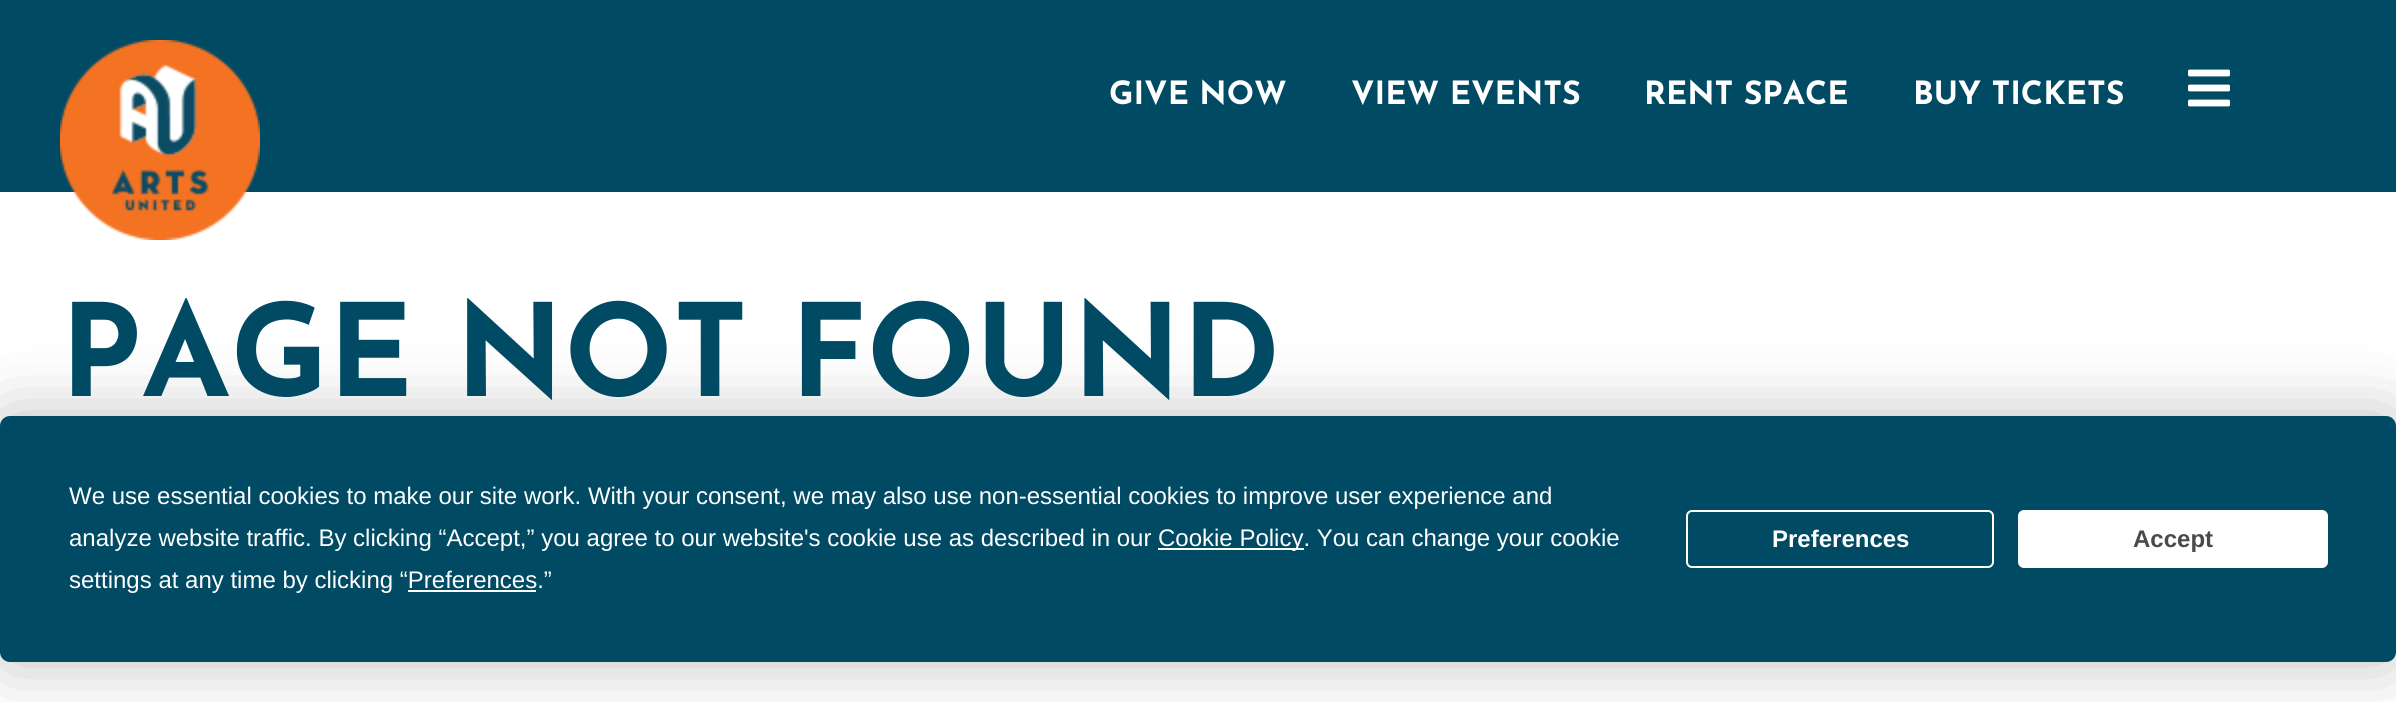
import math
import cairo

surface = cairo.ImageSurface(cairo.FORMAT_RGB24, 2396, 702)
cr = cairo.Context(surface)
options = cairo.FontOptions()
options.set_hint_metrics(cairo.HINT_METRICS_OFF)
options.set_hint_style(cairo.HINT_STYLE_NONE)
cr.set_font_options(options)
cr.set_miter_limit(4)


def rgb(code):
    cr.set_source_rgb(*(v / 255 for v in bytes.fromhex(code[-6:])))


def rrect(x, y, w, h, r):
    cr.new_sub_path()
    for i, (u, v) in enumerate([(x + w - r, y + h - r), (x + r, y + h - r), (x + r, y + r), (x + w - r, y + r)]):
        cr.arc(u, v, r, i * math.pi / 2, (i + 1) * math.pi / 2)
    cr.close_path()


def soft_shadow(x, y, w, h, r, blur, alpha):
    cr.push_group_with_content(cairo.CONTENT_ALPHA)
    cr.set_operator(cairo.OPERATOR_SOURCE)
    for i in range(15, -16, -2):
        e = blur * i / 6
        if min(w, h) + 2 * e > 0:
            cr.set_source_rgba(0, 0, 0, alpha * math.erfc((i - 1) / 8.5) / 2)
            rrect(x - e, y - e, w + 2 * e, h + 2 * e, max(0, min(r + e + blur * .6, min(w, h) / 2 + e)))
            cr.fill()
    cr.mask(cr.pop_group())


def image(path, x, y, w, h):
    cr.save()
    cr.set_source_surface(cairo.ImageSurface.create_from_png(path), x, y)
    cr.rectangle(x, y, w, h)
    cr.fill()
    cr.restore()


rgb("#ffffff")
cr.paint()
rgb("#004a64")
cr.rectangle(0, 0, 2396, 192)
cr.fill()
image("img/1.png", 60, 40, 200, 200)
image("img/2.png", 2188, 69, 42, 38)
rgb("#000000")
soft_shadow(0, 416, 2396, 246, 10, 35, 0.25)
rgb("#004a64")
rrect(0, 416, 2396, 246, 10)
cr.fill()
rgb("#ffffff")
cr.rectangle(1158, 548, 146, 2)
cr.fill()
cr.rectangle(408, 590, 128, 2)
cr.fill()
rrect(1687, 511, 306, 56, 5)
cr.stroke()
rrect(2019, 511, 308, 56, 5)
cr.fill_preserve()
cr.stroke()
cr.select_font_face("Josefin Sans", cairo.FONT_SLANT_NORMAL, cairo.FONT_WEIGHT_BOLD)
cr.set_font_size(32)
for x, y, s in [
    (1109, 104, "GIVE NOW"),
    (1351, 104, "VIEW EVENTS"),
    (1644, 104, "RENT SPACE"),
    (1913, 104, "BUY TICKETS"),
]:
    cr.move_to(x, y)
    cr.show_text(s)
cr.set_font_size(128)
rgb("#004a64")
cr.move_to(60, 396)
cr.show_text("PAGE NOT FOUND")
cr.select_font_face("Liberation Sans")
cr.set_font_size(24)
rgb("#ffffff")
for x, y, s in [
    (69, 504, "We use essential cookies to make our site work. With your consent, we may also use non-essential cookies to improve user experience and"),
    (69, 546, "analyze website traffic. By clicking “Accept,” you agree to our website's cookie use as described in our"),
    (1158, 546, "Cookie Policy. You can change your cookie"),
    (69, 588, "settings at any time by clicking “Preferences.”"),
]:
    cr.move_to(x, y)
    cr.show_text(s)
cr.select_font_face("Liberation Sans", cairo.FONT_SLANT_NORMAL, cairo.FONT_WEIGHT_BOLD)
cr.move_to(1772, 547)
cr.show_text("Preferences")
rgb("#4a4a4a")
cr.move_to(2133, 547)
cr.show_text("Accept")
surface.write_to_png("page.png")
